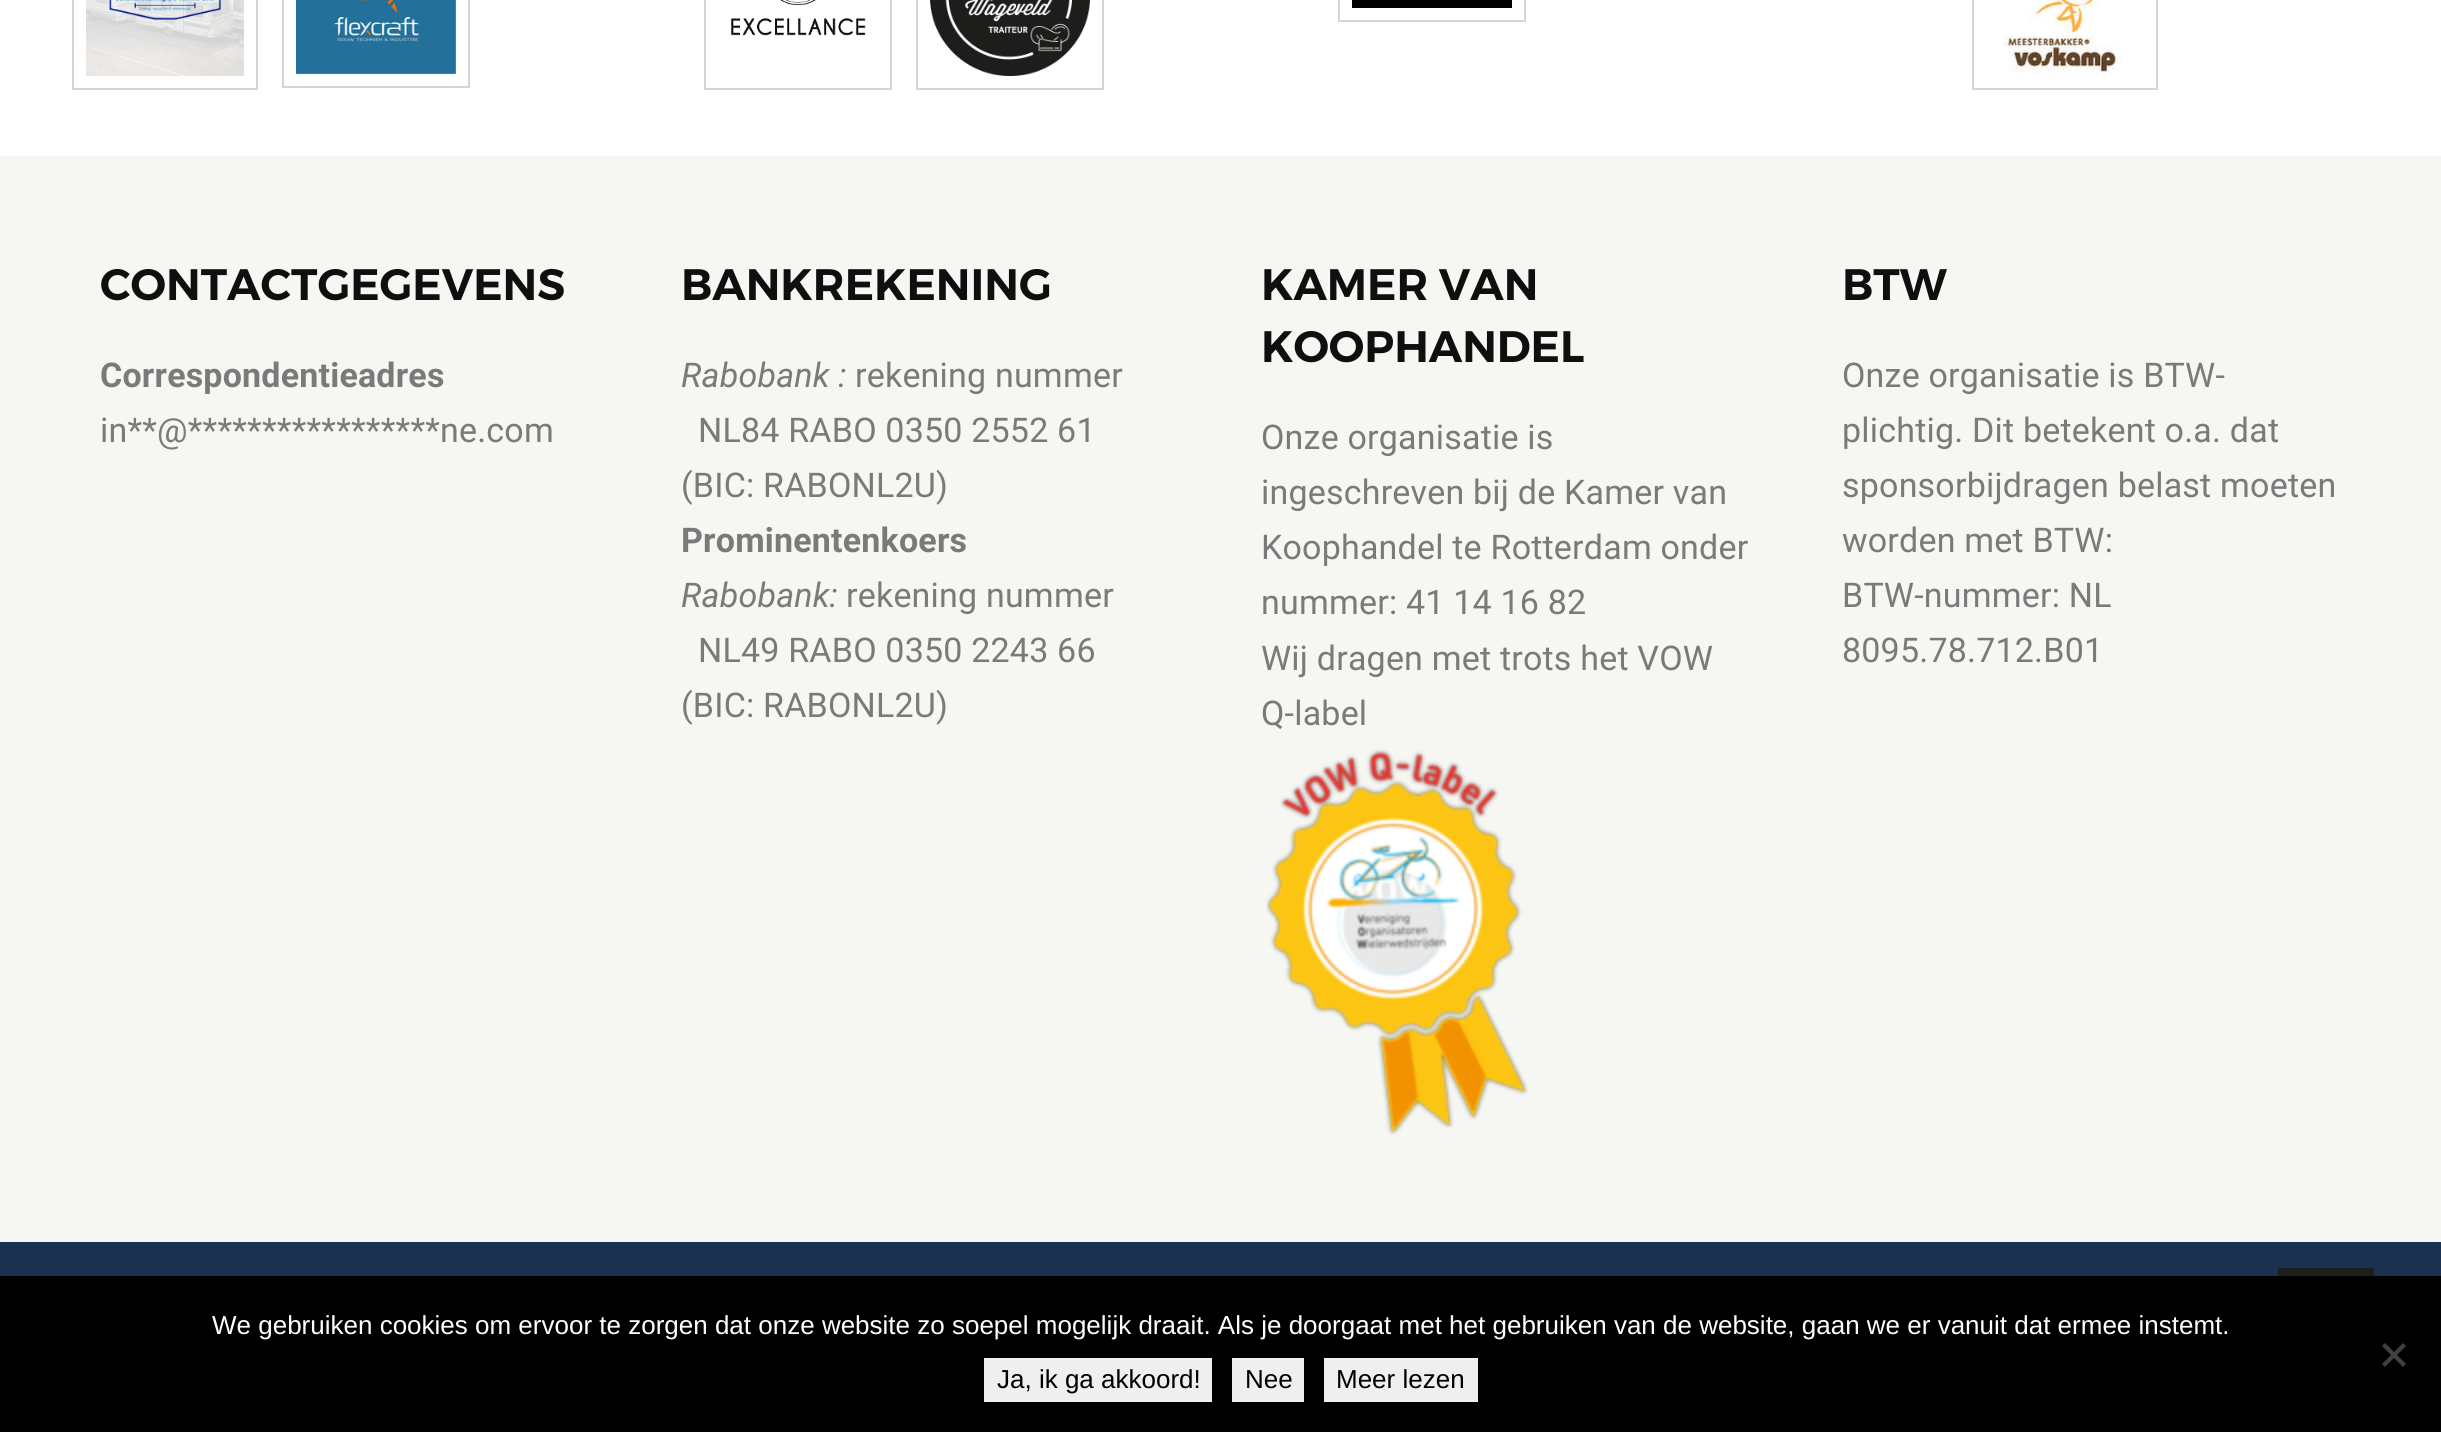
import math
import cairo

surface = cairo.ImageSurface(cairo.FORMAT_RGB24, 2441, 1432)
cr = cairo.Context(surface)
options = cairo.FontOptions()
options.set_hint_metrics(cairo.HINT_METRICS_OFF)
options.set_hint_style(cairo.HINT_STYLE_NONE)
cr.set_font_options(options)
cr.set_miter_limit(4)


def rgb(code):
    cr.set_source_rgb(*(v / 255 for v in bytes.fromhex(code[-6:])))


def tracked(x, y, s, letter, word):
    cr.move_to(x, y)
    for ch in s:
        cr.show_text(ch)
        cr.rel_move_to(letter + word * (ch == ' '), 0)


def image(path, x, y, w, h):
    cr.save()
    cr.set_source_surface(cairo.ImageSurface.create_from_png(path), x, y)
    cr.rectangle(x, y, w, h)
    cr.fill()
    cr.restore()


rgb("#ffffff")
cr.paint()
cr.rectangle(73, -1, 184, 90)
rgb("#d6d4d4")
cr.stroke()
image("img/1.png", 86, 0, 158, 76)
cr.rectangle(283, -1, 186, 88)
cr.stroke()
image("img/2.png", 296, 0, 160, 74)
cr.rectangle(705, -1, 186, 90)
cr.stroke()
image("img/3.png", 730, 0, 136, 36)
cr.rectangle(917, -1, 186, 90)
cr.stroke()
image("img/4.png", 930, 0, 160, 76)
cr.rectangle(1339, -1, 186, 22)
cr.stroke()
rgb("#000000")
cr.rectangle(1352, 0, 160, 8)
cr.fill()
cr.rectangle(1973, -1, 184, 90)
rgb("#d6d4d4")
cr.stroke()
image("img/5.png", 2003, 0, 118, 75)
rgb("#f6f7f3")
cr.rectangle(0, 156, 2441, 1086)
cr.fill()
image("img/6.png", 1266, 749, 262, 386)
for x, y, w, h, color in [
    (0, 1242, 2441, 34, "#1a3150"),
    (2278, 1268, 96, 8, "#1e1e1e"),
    (0, 1276, 2441, 156, "#000000"),
]:
    rgb(color)
    cr.rectangle(x, y, w, h)
    cr.fill()
rgb("#404040")
cr.new_path()
cr.move_to(2403, 1343)
cr.line_to(2406, 1346)
cr.line_to(2385, 1367)
cr.line_to(2382, 1364)
cr.close_path()
cr.fill()
cr.new_path()
cr.move_to(2382, 1346)
cr.line_to(2385, 1343)
cr.line_to(2406, 1364)
cr.line_to(2403, 1367)
cr.close_path()
cr.fill()
for x, y, w, h, color in [
    (984, 1358, 228, 44, "#efefef"),
    (1232, 1358, 72, 44, "#efefef"),
    (1324, 1358, 154, 44, "#efefef"),
]:
    rgb(color)
    cr.rectangle(x, y, w, h)
    cr.fill()
cr.select_font_face("Montserrat SemiBold")
cr.set_font_size(44)
rgb("#0f0f0f")
cr.move_to(100, 300)
cr.show_text("CONTACTGEGEVENS")
cr.select_font_face("Roboto", cairo.FONT_SLANT_NORMAL, cairo.FONT_WEIGHT_BOLD)
cr.set_font_size(34)
rgb("#7a7a7a")
tracked(100, 387, "Correspondentieadres", 0.2, 0)
cr.select_font_face("Roboto")
for x, y, s in [
    (100, 442, "in**"),
    (157, 442, "@*****************"),
    (440, 442, "ne.com"),
]:
    tracked(x, y, s, 0.2, 0)
cr.select_font_face("Montserrat SemiBold")
cr.set_font_size(44)
rgb("#0f0f0f")
cr.move_to(681, 300)
cr.show_text("BANKREKENING")
cr.select_font_face("Roboto", cairo.FONT_SLANT_ITALIC)
cr.set_font_size(34)
rgb("#7a7a7a")
tracked(681, 387, "Rabobank :", 0.2, 0)
cr.select_font_face("Roboto")
for x, y, s in [
    (855, 387, "rekening nummer"),
    (698, 442, "NL84 RABO 0350 2552 61"),
    (681, 497, "(BIC: RABONL2U)"),
]:
    tracked(x, y, s, 0.2, 0)
cr.select_font_face("Roboto", cairo.FONT_SLANT_NORMAL, cairo.FONT_WEIGHT_BOLD)
tracked(681, 552, "Prominentenkoers", 0.2, 0)
cr.select_font_face("Roboto", cairo.FONT_SLANT_ITALIC)
tracked(681, 607, "Rabobank:", 0.2, 0)
cr.select_font_face("Roboto")
for x, y, s in [
    (846, 607, "rekening nummer"),
    (698, 662, "NL49 RABO 0350 2243 66"),
    (681, 717, "(BIC: RABONL2U)"),
]:
    tracked(x, y, s, 0.2, 0)
cr.select_font_face("Montserrat SemiBold")
cr.set_font_size(44)
rgb("#0f0f0f")
cr.move_to(1261, 300)
cr.show_text("KAMER VAN")
cr.move_to(1261, 362)
cr.show_text("KOOPHANDEL")
cr.select_font_face("Roboto")
cr.set_font_size(34)
rgb("#7a7a7a")
for x, y, s in [
    (1261, 449, "Onze organisatie is"),
    (1261, 504, "ingeschreven bij de Kamer van"),
    (1261, 559, "Koophandel te Rotterdam onder"),
    (1261, 614, "nummer: 41 14 16 82"),
    (1261, 670, "Wij dragen met trots het VOW"),
    (1261, 725, "Q-label"),
]:
    tracked(x, y, s, 0.2, 0)
cr.select_font_face("Montserrat SemiBold")
cr.set_font_size(44)
rgb("#0f0f0f")
cr.move_to(1842, 300)
cr.show_text("BTW")
cr.select_font_face("Roboto")
cr.set_font_size(34)
rgb("#7a7a7a")
for x, y, s in [
    (1842, 387, "Onze organisatie is BTW-"),
    (1842, 442, "plichtig. Dit betekent o.a. dat"),
    (1842, 497, "sponsorbijdragen belast moeten"),
    (1842, 552, "worden met BTW:"),
    (1842, 607, "BTW-nummer: NL"),
    (1842, 662, "8095.78.712.B01"),
]:
    tracked(x, y, s, 0.2, 0)
cr.select_font_face("Liberation Sans")
cr.set_font_size(26)
rgb("#ffffff")
cr.move_to(212, 1334)
cr.show_text("We gebruiken cookies om ervoor te zorgen dat onze website zo soepel mogelijk draait. Als je doorgaat met het gebruiken van de website, gaan we er vanuit dat ermee instemt.")
rgb("#000000")
for x, y, s in [
    (997, 1388, "Ja, ik ga akkoord!"),
    (1245, 1388, "Nee"),
    (1336, 1388, "Meer lezen"),
]:
    cr.move_to(x, y)
    cr.show_text(s)
surface.write_to_png("page.png")
